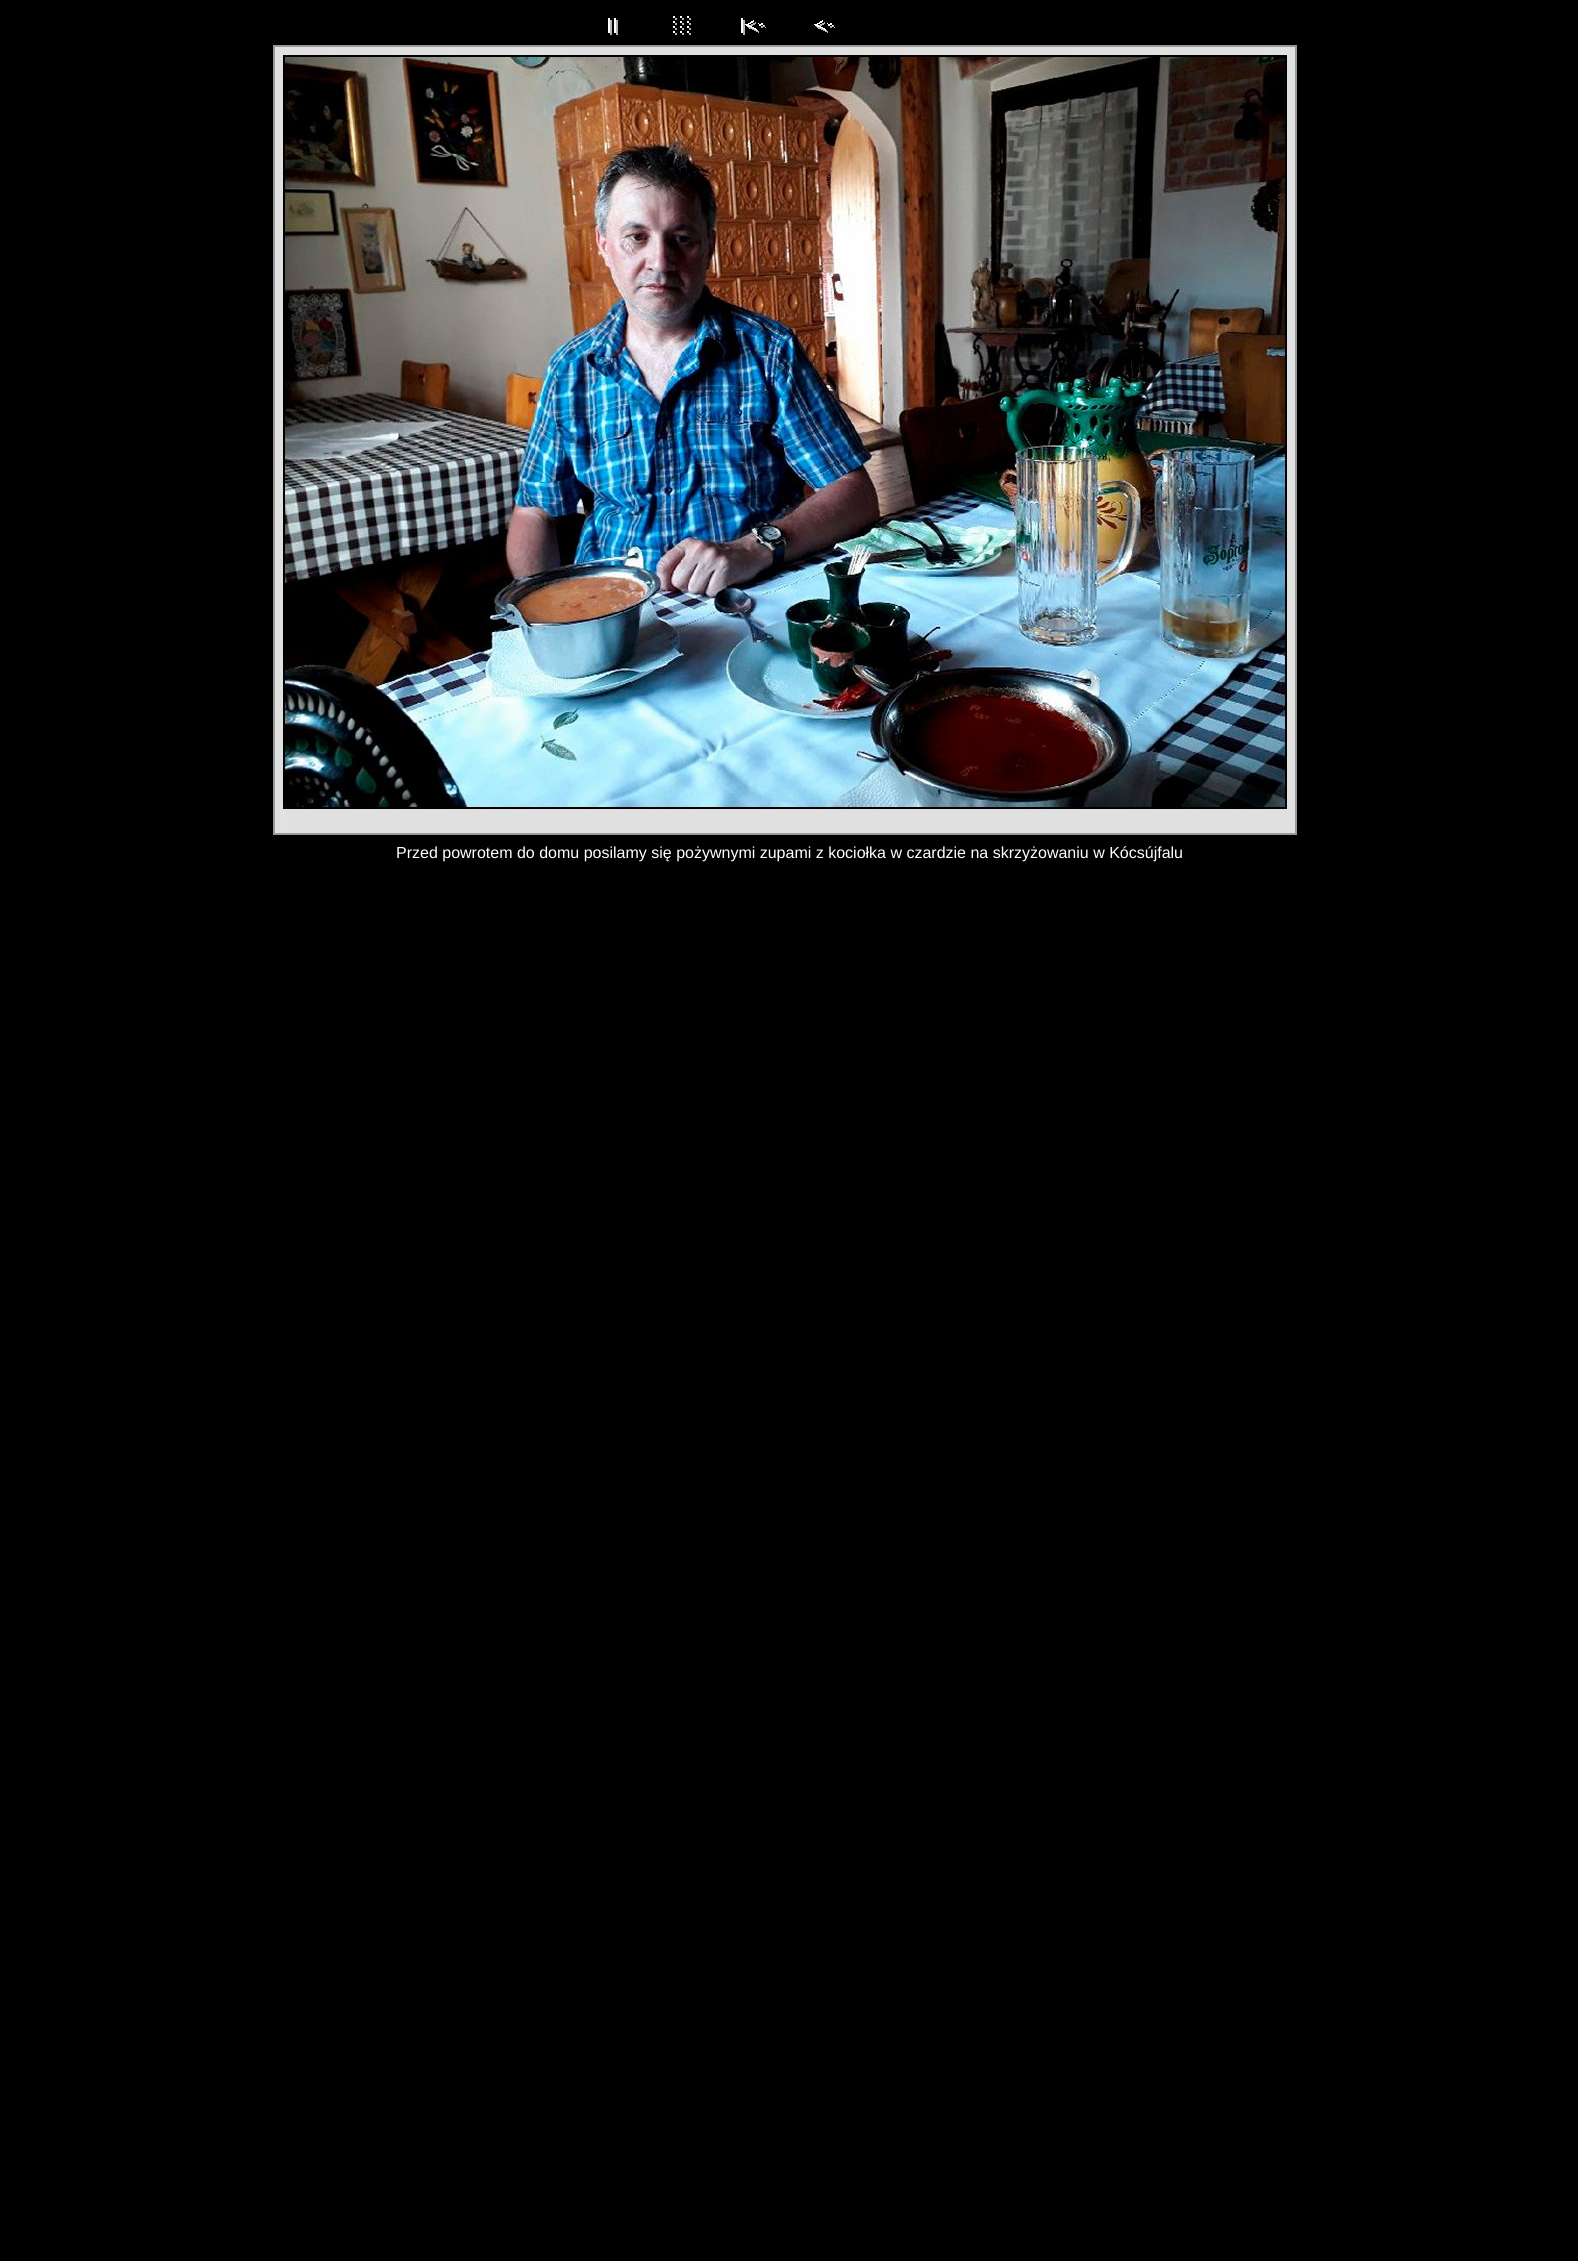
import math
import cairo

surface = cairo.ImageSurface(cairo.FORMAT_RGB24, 1578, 2261)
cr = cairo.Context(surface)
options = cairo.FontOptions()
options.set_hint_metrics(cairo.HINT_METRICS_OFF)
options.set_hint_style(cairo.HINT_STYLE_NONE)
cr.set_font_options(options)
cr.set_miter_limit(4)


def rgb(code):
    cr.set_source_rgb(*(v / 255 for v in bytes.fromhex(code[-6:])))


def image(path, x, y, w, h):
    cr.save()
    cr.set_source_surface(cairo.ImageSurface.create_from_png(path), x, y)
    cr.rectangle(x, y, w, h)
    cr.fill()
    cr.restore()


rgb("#000000")
cr.paint()
image("img/1.png", 608, 18, 10, 17)
image("img/2.png", 673, 16, 18, 19)
image("img/3.png", 741, 18, 25, 17)
image("img/4.png", 814, 20, 21, 13)
image("img/5.png", 272, 44, 1031, 792)
cr.select_font_face("Liberation Sans")
cr.set_font_size(16)
rgb("#ffffff")
cr.move_to(396, 858)
cr.show_text("Przed powrotem do domu posilamy się pożywnymi zupami z kociołka w czardzie na skrzyżowaniu w Kócsújfalu")
surface.write_to_png("page.png")
